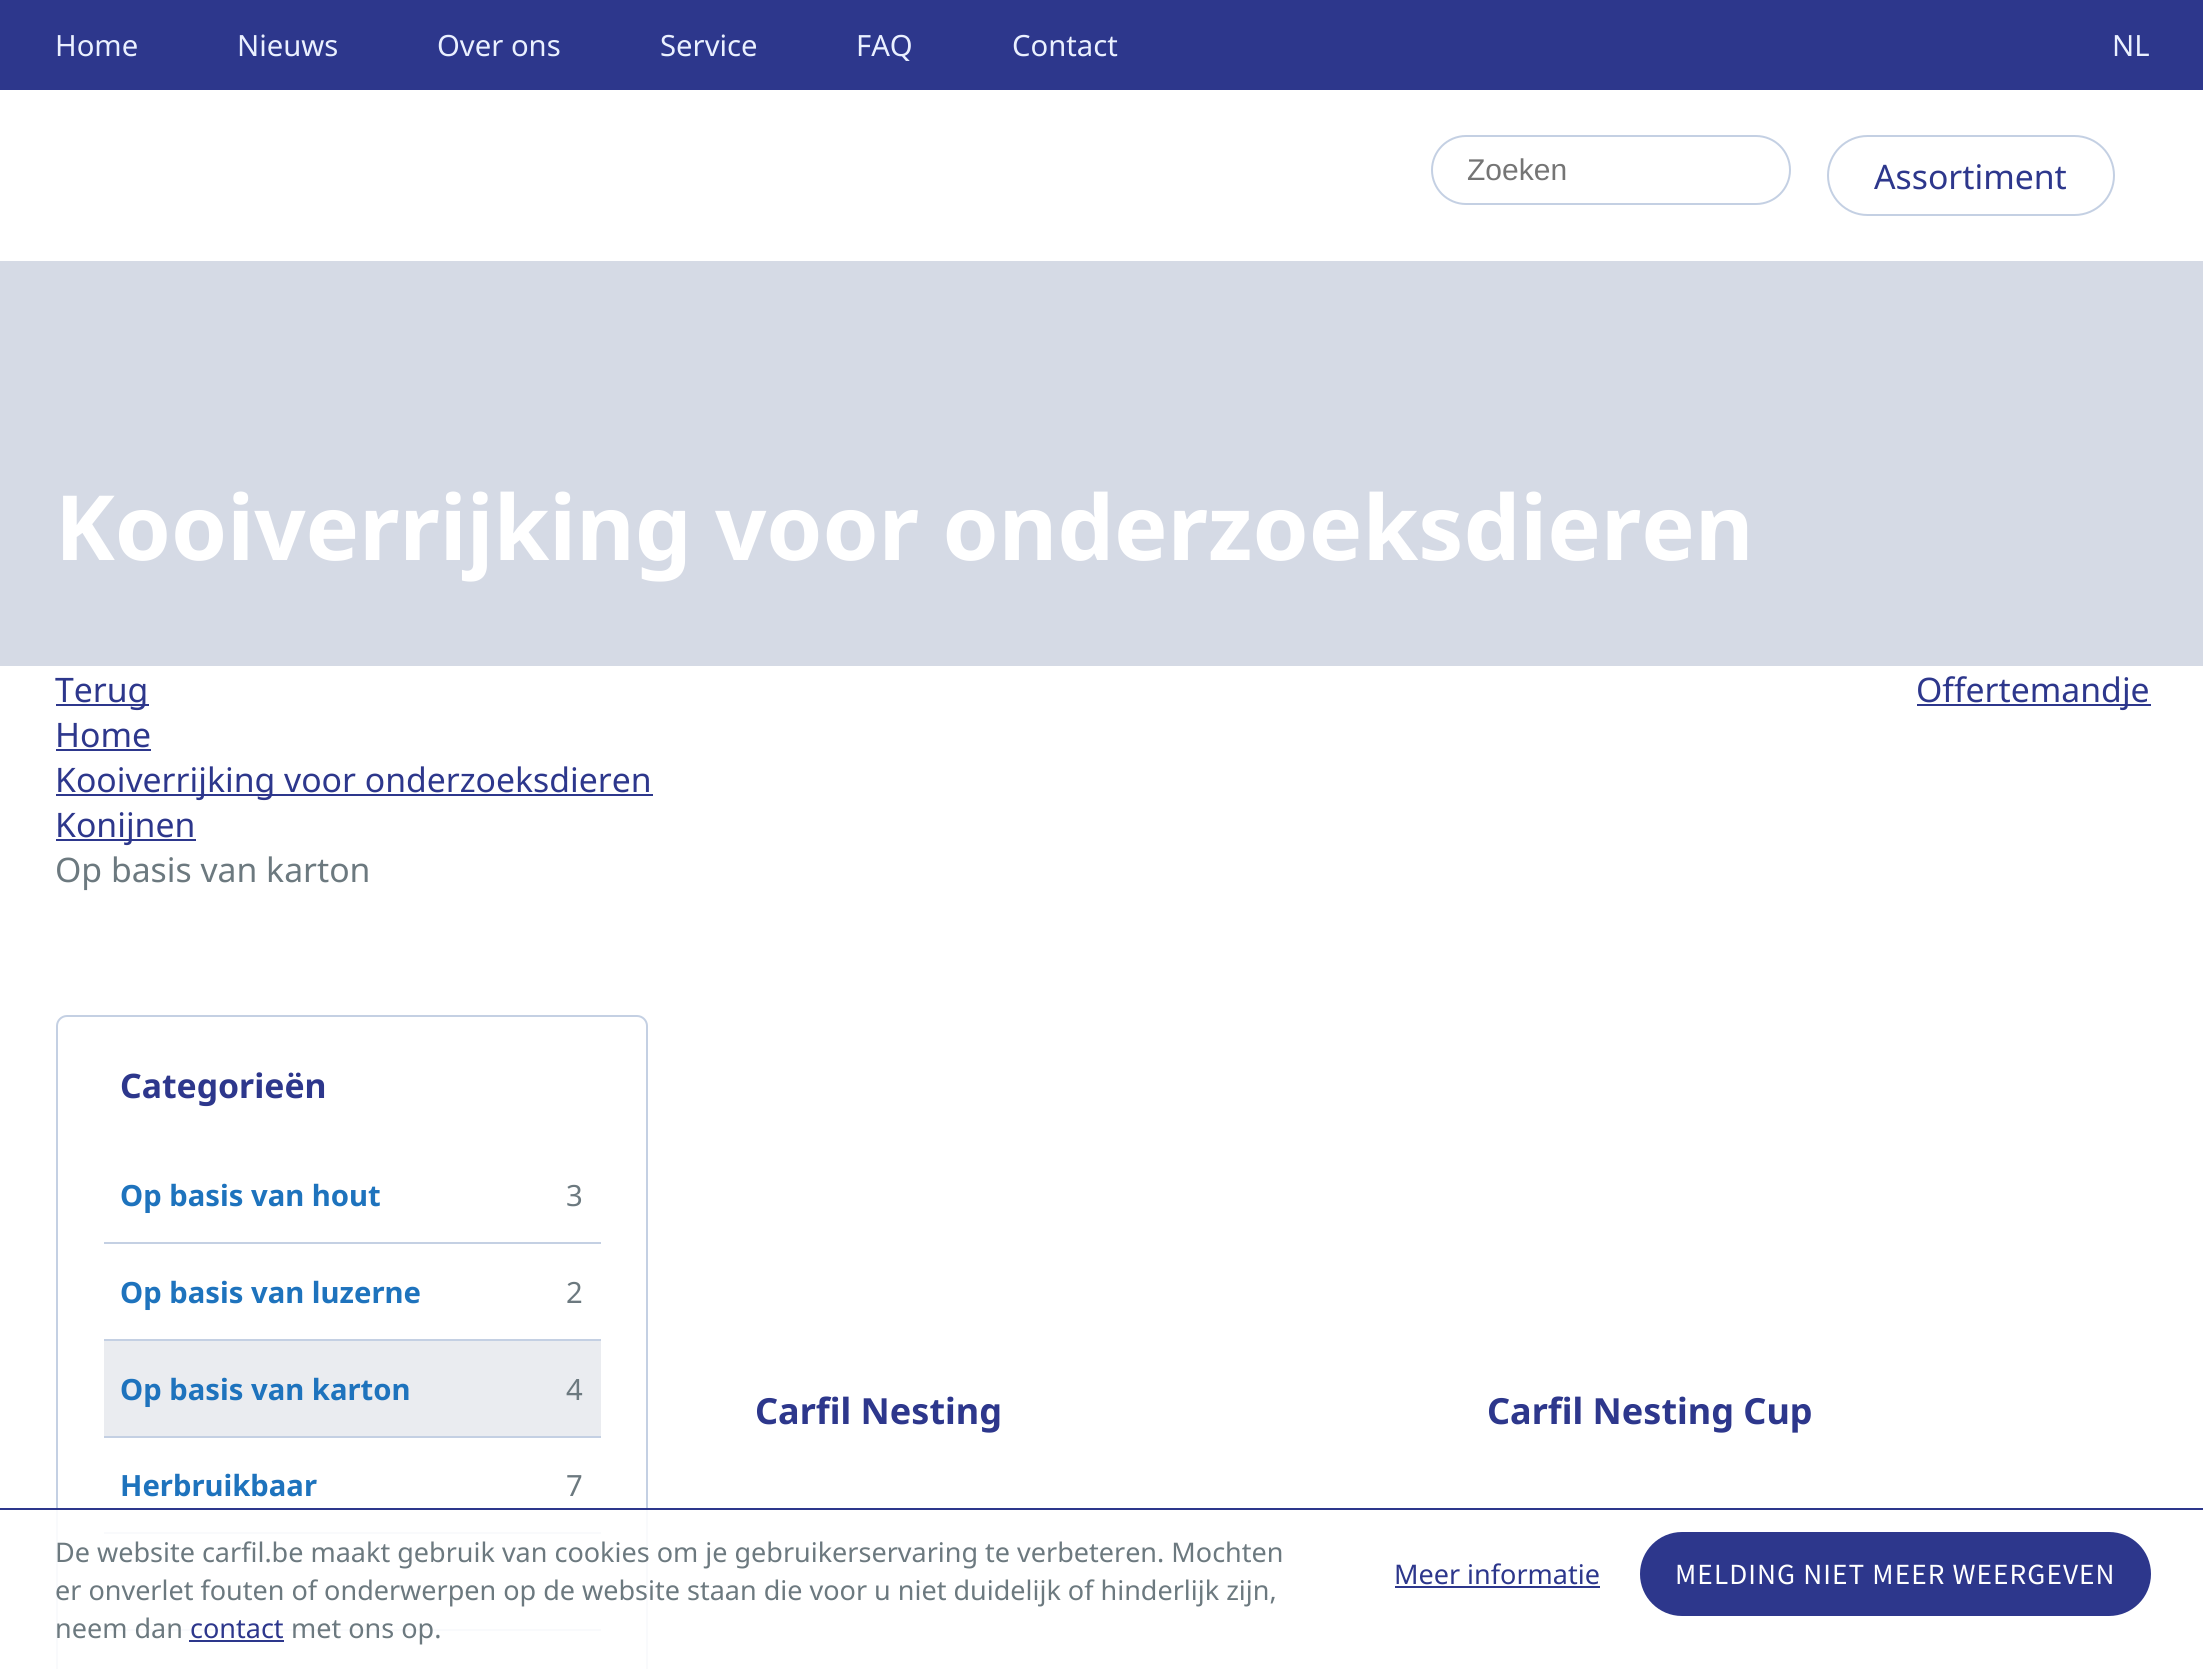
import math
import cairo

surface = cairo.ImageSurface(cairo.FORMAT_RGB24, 2203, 1669)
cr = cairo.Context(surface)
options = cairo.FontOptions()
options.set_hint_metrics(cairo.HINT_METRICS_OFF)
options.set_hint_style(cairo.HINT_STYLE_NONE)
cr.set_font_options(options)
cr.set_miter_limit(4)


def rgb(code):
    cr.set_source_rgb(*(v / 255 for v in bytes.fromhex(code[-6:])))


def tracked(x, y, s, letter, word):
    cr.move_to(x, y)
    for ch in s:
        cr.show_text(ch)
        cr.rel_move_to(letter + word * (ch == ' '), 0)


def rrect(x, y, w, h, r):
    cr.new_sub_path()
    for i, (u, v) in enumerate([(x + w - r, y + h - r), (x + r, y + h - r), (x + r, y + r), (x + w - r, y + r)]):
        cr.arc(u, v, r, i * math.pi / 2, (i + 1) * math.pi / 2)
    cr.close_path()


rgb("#ffffff")
cr.paint()
rgb("#2d378c")
cr.rectangle(0, 0, 2203, 90)
cr.fill()
rrect(1432, 136, 358, 68, 34)
rgb("#c4d0e3")
cr.stroke()
rrect(1828, 136, 286, 79, 39.5)
cr.stroke()
for x, y, w, h, color in [
    (0, 261, 2203, 405, "#d5dae5"),
    (56, 704, 93, 2, "#2d378c"),
    (1917, 704, 234, 2, "#2d378c"),
    (56, 749, 95, 2, "#2d378c"),
    (56, 794, 597, 2, "#2d378c"),
    (56, 839, 140, 2, "#2d378c"),
]:
    rgb(color)
    cr.rectangle(x, y, w, h)
    cr.fill()
rrect(57, 1016, 590, 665, 10)
rgb("#c4d0e3")
cr.stroke()
cr.rectangle(104, 1242, 497, 2)
cr.fill()
rgb("#eaecf0")
cr.rectangle(104, 1341, 497, 95)
cr.fill()
rgb("#c4d0e3")
cr.rectangle(104, 1339, 497, 2)
cr.rectangle(104, 1436, 497, 2)
cr.rectangle(104, 1532, 497, 2)
cr.rectangle(104, 1629, 497, 2)
cr.fill()
cr.set_source_rgba(1, 1, 1, 0.9)
cr.rectangle(56, 1510, 592, 159)
cr.fill()
rgb("#2d378c")
cr.rectangle(0, 1508, 2203, 2)
cr.rectangle(189, 1640, 95, 2)
cr.rectangle(1395, 1586, 205, 2)
cr.fill()
rrect(1640, 1532, 511, 84, 42)
cr.fill()
cr.select_font_face("Noto Sans")
cr.set_font_size(29.25)
rgb("#eaf0ff")
for x, y, s in [
    (55, 56, "Home"),
    (237, 56, "Nieuws"),
    (437, 56, "Over ons"),
    (660, 56, "Service"),
    (856, 56, "FAQ"),
    (1012, 56, "Contact"),
    (2112, 56, "NL"),
]:
    cr.move_to(x, y)
    cr.show_text(s)
cr.select_font_face("Liberation Sans")
cr.set_font_size(30)
rgb("#757575")
cr.move_to(1467, 180)
cr.show_text("Zoeken")
cr.select_font_face("Noto Sans")
cr.set_font_size(33.75)
rgb("#2d378c")
cr.move_to(1874, 189)
cr.show_text("Assortiment")
cr.select_font_face("Noto Sans", cairo.FONT_SLANT_NORMAL, cairo.FONT_WEIGHT_BOLD)
cr.set_font_size(90)
rgb("#ffffff")
cr.move_to(55, 560)
cr.show_text("Kooiverrijking voor onderzoeksdieren")
cr.select_font_face("Noto Sans")
cr.set_font_size(33.75)
rgb("#2d378c")
for x, y, s in [
    (55, 702, "Terug"),
    (1916, 702, "Offertemandje"),
    (55, 747, "Home"),
    (55, 792, "Kooiverrijking voor onderzoeksdieren"),
    (55, 837, "Konijnen"),
]:
    cr.move_to(x, y)
    cr.show_text(s)
rgb("#6c797f")
cr.move_to(55, 882)
cr.show_text("Op basis van karton")
cr.select_font_face("Noto Sans", cairo.FONT_SLANT_NORMAL, cairo.FONT_WEIGHT_BOLD)
rgb("#2d378c")
cr.move_to(120, 1098)
cr.show_text("Categorieën")
cr.set_font_size(29.25)
rgb("#1e73bd")
cr.move_to(120, 1206)
cr.show_text("Op basis van hout")
cr.select_font_face("Noto Sans")
rgb("#6c797f")
cr.move_to(566, 1206)
cr.show_text("3")
cr.select_font_face("Noto Sans", cairo.FONT_SLANT_NORMAL, cairo.FONT_WEIGHT_BOLD)
rgb("#1e73bd")
cr.move_to(120, 1303)
cr.show_text("Op basis van luzerne")
cr.select_font_face("Noto Sans")
rgb("#6c797f")
cr.move_to(566, 1303)
cr.show_text("2")
cr.select_font_face("Noto Sans", cairo.FONT_SLANT_NORMAL, cairo.FONT_WEIGHT_BOLD)
rgb("#1e73bd")
cr.move_to(120, 1400)
cr.show_text("Op basis van karton")
cr.select_font_face("Noto Sans")
rgb("#6c797f")
cr.move_to(566, 1400)
cr.show_text("4")
cr.select_font_face("Noto Sans", cairo.FONT_SLANT_NORMAL, cairo.FONT_WEIGHT_BOLD)
rgb("#1e73bd")
cr.move_to(120, 1496)
cr.show_text("Herbruikbaar")
cr.select_font_face("Noto Sans")
rgb("#6c797f")
cr.move_to(566, 1496)
cr.show_text("7")
cr.select_font_face("Noto Sans", cairo.FONT_SLANT_NORMAL, cairo.FONT_WEIGHT_BOLD)
cr.set_font_size(36)
rgb("#2d378c")
cr.move_to(755, 1424)
cr.show_text("Carfil Nesting")
cr.move_to(1487, 1424)
cr.show_text("Carfil Nesting Cup")
cr.select_font_face("Noto Sans")
cr.set_font_size(27)
rgb("#6c797f")
for x, y, s in [
    (55, 1562, "De website carfil.be maakt gebruik van cookies om je gebruikerservaring te verbeteren. Mochten"),
    (55, 1600, "er onverlet fouten of onderwerpen op de website staan die voor u niet duidelijk of hinderlijk zijn,"),
    (55, 1638, "neem dan"),
]:
    cr.move_to(x, y)
    cr.show_text(s)
rgb("#2d378c")
cr.move_to(190, 1638)
cr.show_text("contact")
rgb("#6c797f")
cr.move_to(291, 1638)
cr.show_text("met ons op.")
rgb("#2d378c")
cr.move_to(1394, 1584)
cr.show_text("Meer informatie")
cr.select_font_face("Source Sans Pro")
cr.set_font_size(29.25)
rgb("#ffffff")
tracked(1675, 1584, "MELDING NIET MEER WEERGEVEN", 1.1, 0)
surface.write_to_png("page.png")
